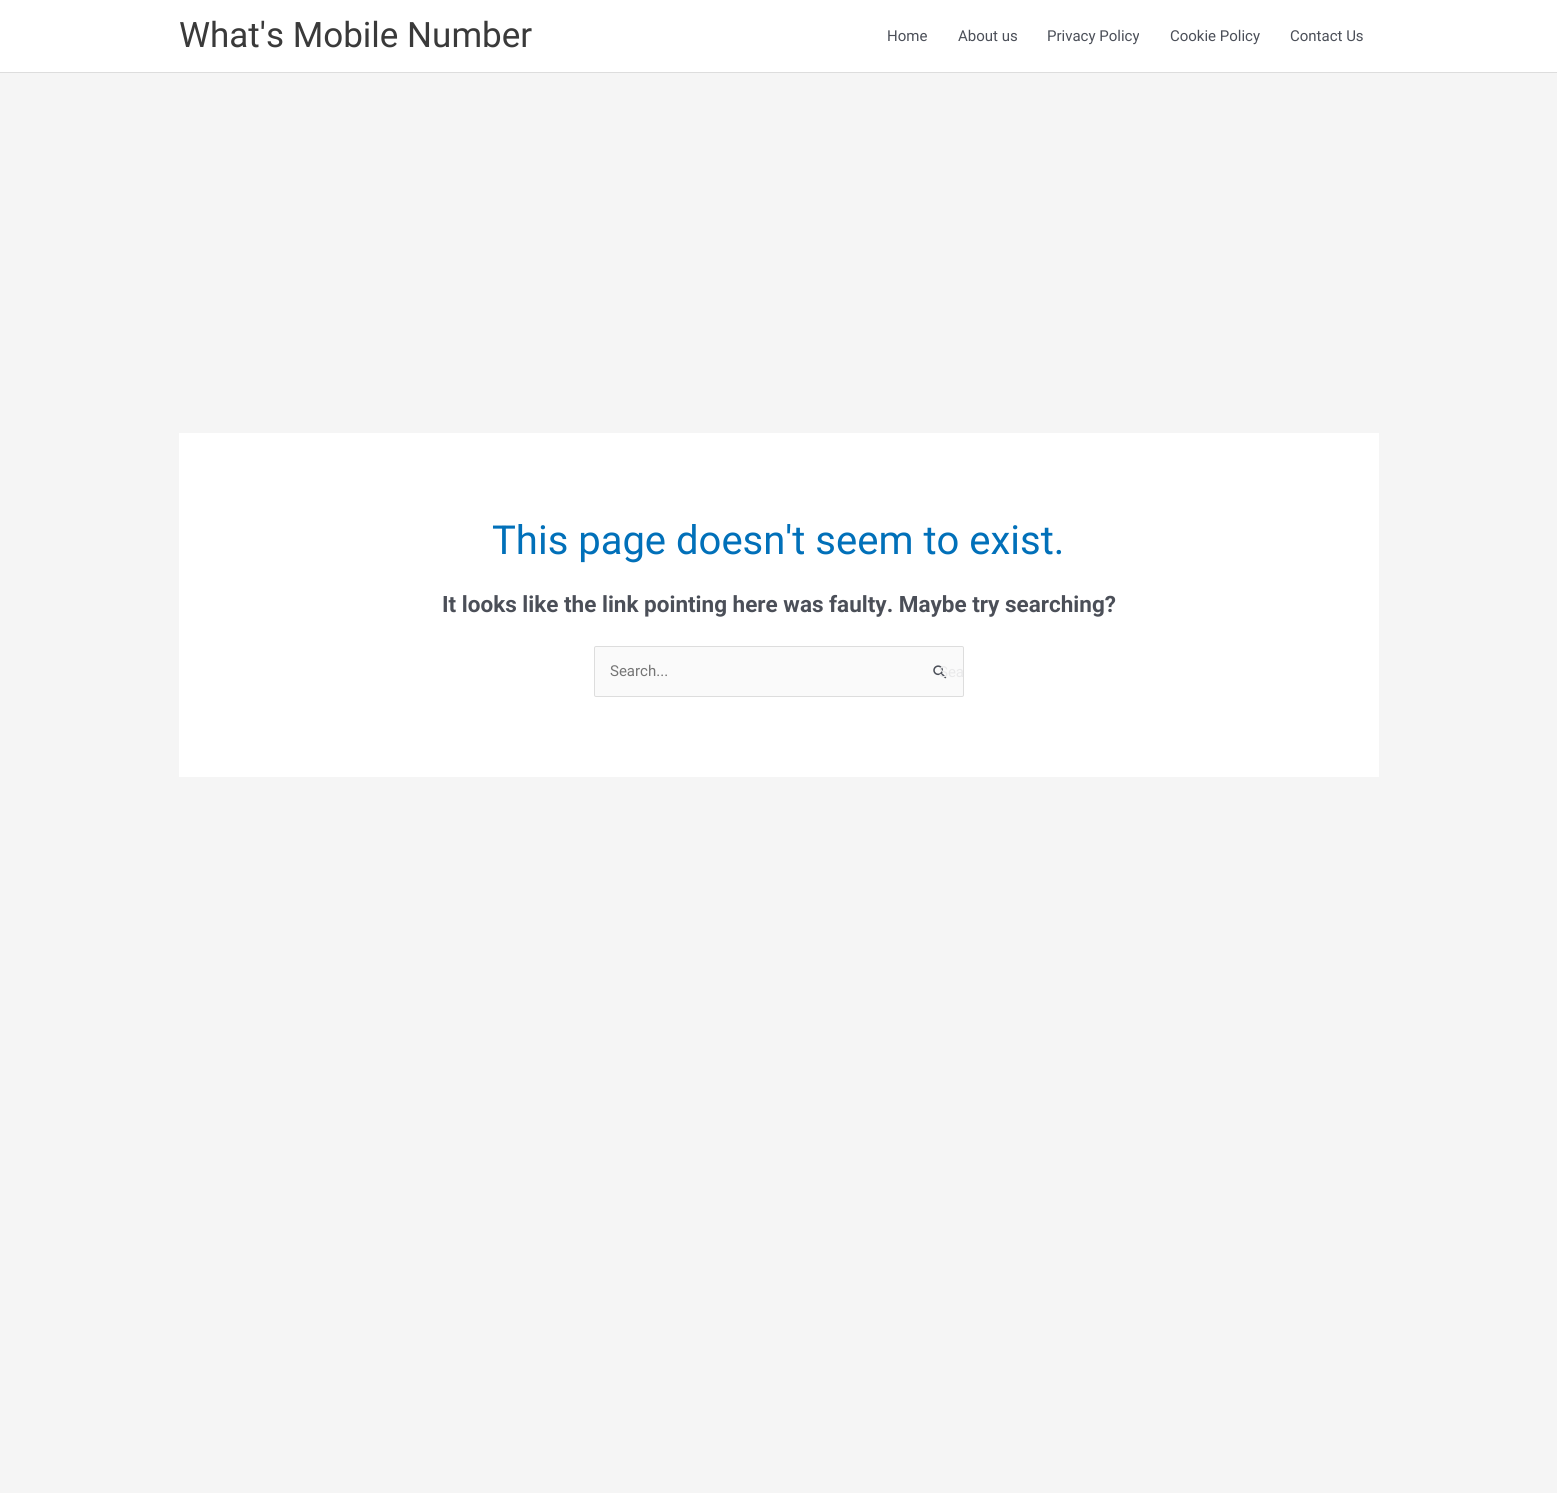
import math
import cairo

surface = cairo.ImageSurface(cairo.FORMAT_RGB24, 1557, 1493)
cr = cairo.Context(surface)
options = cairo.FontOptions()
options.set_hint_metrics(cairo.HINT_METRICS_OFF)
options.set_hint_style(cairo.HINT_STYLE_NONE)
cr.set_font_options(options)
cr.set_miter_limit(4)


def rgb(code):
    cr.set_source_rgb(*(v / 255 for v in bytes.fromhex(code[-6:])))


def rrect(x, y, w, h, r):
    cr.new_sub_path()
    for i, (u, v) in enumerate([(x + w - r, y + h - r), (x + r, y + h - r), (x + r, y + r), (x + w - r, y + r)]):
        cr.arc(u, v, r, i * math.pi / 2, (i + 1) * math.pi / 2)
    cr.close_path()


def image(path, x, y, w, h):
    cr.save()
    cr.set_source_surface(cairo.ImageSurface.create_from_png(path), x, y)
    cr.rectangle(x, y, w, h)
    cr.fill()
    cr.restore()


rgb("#f5f5f5")
cr.paint()
for x, y, w, h, color in [
    (0, 0, 1557, 72, "#ffffff"),
    (0, 72, 1557, 1, "#dddddd"),
    (179, 433, 1200, 344, "#ffffff"),
]:
    rgb(color)
    cr.rectangle(x, y, w, h)
    cr.fill()
rgb("#fafafa")
rrect(594.5, 646.5, 369, 50, 1.5)
cr.fill_preserve()
rgb("#dddddd")
cr.set_line_width(1)
cr.stroke()
image("img/1.png", 933, 665, 14, 14)
cr.select_font_face("Roboto")
cr.set_font_size(35)
rgb("#3a3a3a")
cr.move_to(179, 47)
cr.show_text("What's Mobile Number")
cr.set_font_size(15)
rgb("#4b4f58")
for x, y, s in [
    (887, 41, "Home"),
    (958, 41, "About us"),
    (1047, 41, "Privacy Policy"),
    (1170, 41, "Cookie Policy"),
    (1290, 41, "Contact Us"),
]:
    cr.move_to(x, y)
    cr.show_text(s)
cr.set_font_size(40)
rgb("#0170b9")
cr.move_to(492, 554)
cr.show_text("This page doesn't seem to exist.")
cr.select_font_face("Roboto", cairo.FONT_SLANT_NORMAL, cairo.FONT_WEIGHT_BOLD)
cr.set_font_size(22.5)
rgb("#4b4f58")
cr.move_to(442, 612)
cr.show_text("It looks like the link pointing here was faulty. Maybe try searching?")
cr.select_font_face("Roboto")
cr.set_font_size(15)
rgb("#757575")
cr.move_to(610, 676)
cr.show_text("Search...")
rgb("#e9e9ea")
cr.move_to(939, 677)
cr.show_text("Sea")
surface.write_to_png("page.png")
